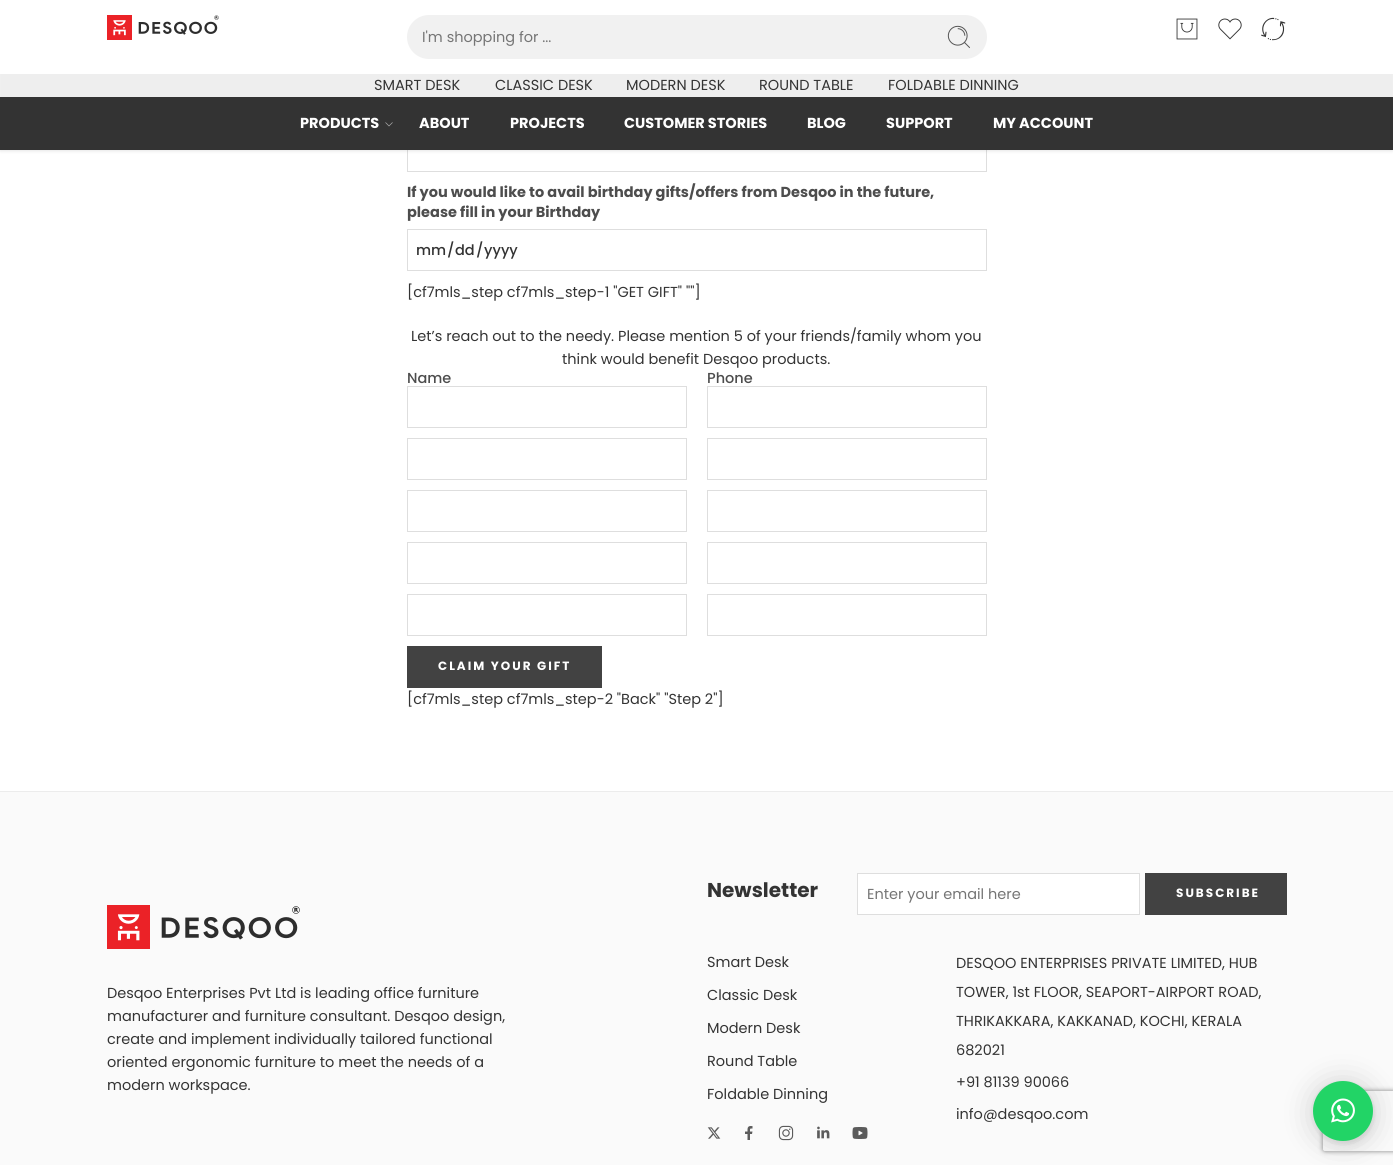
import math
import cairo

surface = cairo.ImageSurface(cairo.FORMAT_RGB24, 1393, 1165)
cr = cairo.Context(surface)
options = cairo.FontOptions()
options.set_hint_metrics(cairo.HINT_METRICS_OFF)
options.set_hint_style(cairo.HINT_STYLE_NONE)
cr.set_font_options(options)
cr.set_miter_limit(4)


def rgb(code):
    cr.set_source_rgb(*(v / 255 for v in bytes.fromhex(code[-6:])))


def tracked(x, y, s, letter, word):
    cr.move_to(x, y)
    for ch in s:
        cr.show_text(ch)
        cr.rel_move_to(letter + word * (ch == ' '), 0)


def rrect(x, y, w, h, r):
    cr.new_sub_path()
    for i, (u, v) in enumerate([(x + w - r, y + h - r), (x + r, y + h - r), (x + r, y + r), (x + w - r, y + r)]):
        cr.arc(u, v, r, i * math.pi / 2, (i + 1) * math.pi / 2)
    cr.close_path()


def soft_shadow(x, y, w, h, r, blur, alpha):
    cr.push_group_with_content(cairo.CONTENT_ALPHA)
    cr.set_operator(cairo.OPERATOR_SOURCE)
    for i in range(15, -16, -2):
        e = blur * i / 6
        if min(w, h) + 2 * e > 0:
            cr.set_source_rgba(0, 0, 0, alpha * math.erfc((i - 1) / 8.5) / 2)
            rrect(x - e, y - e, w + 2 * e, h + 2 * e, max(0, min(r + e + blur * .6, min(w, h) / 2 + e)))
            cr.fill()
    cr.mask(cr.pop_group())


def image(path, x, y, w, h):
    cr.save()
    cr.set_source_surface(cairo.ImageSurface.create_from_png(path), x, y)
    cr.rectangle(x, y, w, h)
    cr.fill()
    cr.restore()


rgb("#ffffff")
cr.paint()
cr.rectangle(407.5, 130.5, 579, 41)
rgb("#dedede")
cr.set_line_width(1)
cr.stroke()
rgb("#000000")
soft_shadow(0, 1, 1393, 150, 0, 1.5, 0.1)
rgb("#ffffff")
cr.rectangle(0, 0, 1393, 74)
cr.fill()
image("img/1.png", 107, 15, 112, 25)
rgb("#f1f1f1")
rrect(407, 15, 580, 44, 22)
cr.fill()
image("img/2.png", 947, 25, 23, 24)
image("img/3.png", 1176, 18, 22, 22)
image("img/4.png", 1218, 18, 24, 22)
image("img/5.png", 1261, 17, 25, 24)
rgb("#eeeeee")
cr.rectangle(1, 74, 1391, 23)
cr.fill()
rgb("#333333")
cr.rectangle(0, 97, 1393, 53)
cr.fill()
image("img/6.png", 385, 122, 8, 5)
cr.rectangle(407.5, 229.5, 579, 41)
rgb("#dedede")
cr.stroke()
cr.rectangle(407.5, 386.5, 279, 41)
cr.stroke()
cr.rectangle(707.5, 386.5, 279, 41)
cr.stroke()
cr.rectangle(407.5, 438.5, 279, 41)
cr.stroke()
cr.rectangle(707.5, 438.5, 279, 41)
cr.stroke()
cr.rectangle(407.5, 490.5, 279, 41)
cr.stroke()
cr.rectangle(707.5, 490.5, 279, 41)
cr.stroke()
cr.rectangle(407.5, 542.5, 279, 41)
cr.stroke()
cr.rectangle(707.5, 542.5, 279, 41)
cr.stroke()
cr.rectangle(407.5, 594.5, 279, 41)
cr.stroke()
cr.rectangle(707.5, 594.5, 279, 41)
cr.stroke()
for x, y, w, h, color in [
    (407, 646, 195, 42, "#424242"),
    (0, 792, 1393, 373, "#fafafa"),
    (0, 791, 1393, 1, "#ececec"),
]:
    rgb(color)
    cr.rectangle(x, y, w, h)
    cr.fill()
image("img/7.png", 107, 905, 193, 44)
rgb("#ffffff")
cr.rectangle(857.5, 873.5, 282, 41)
cr.fill_preserve()
rgb("#dedede")
cr.stroke()
rgb("#424242")
cr.rectangle(1145, 873, 142, 42)
cr.fill()
image("img/8.png", 707, 1127, 14, 12)
image("img/9.png", 745, 1126, 8, 14)
image("img/10.png", 778, 1125, 16, 16)
image("img/11.png", 817, 1126, 13, 13)
image("img/12.png", 852, 1127, 16, 12)
rgb("#000000")
soft_shadow(1313, 1083, 60, 60, 30, 16, 0.16)
soft_shadow(1313, 1082, 60, 60, 30, 3, 0.06)
soft_shadow(1323, 1095, 47, 47, 23.5, 5, 0.1)
cr.save()
cr.set_fill_rule(cairo.FILL_RULE_EVEN_ODD)
cr.new_path()
cr.move_to(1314, 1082)
cr.line_to(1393, 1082)
cr.line_to(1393, 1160)
cr.line_to(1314, 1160)
cr.close_path()
cr.move_to(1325, 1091)
cr.line_to(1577, 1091)
cr.curve_to(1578, 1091, 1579, 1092, 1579, 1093)
cr.line_to(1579, 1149)
cr.curve_to(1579, 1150, 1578, 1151, 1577, 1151)
cr.line_to(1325, 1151)
cr.curve_to(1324, 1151, 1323, 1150, 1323, 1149)
cr.line_to(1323, 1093)
cr.curve_to(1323, 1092, 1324, 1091, 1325, 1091)
cr.close_path()
cr.clip()
rgb("#808080")
soft_shadow(1323, 1091, 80, 60, 2, 2.5, 1)
cr.restore()
rgb("#22d466")
cr.arc(1343, 1111, 30, 0, 2 * math.pi)
cr.fill()
image("img/13.png", 1331, 1098, 24, 25)
cr.select_font_face("Poppins")
cr.set_font_size(14.5)
rgb("#757575")
cr.move_to(422, 42)
cr.show_text("I'm shopping for ...")
rgb("#333333")
for x, y, s in [
    (374, 90, "SMART DESK"),
    (495, 90, "CLASSIC DESK"),
    (626, 90, "MODERN DESK"),
    (759, 90, "ROUND TABLE"),
    (888, 90, "FOLDABLE DINNING"),
]:
    cr.move_to(x, y)
    cr.show_text(s)
cr.select_font_face("Poppins", cairo.FONT_SLANT_NORMAL, cairo.FONT_WEIGHT_BOLD)
rgb("#ffffff")
for x, y, s in [
    (300, 128, "PRODUCTS"),
    (419, 128, "ABOUT"),
    (510, 128, "PROJECTS"),
    (624, 128, "CUSTOMER STORIES"),
    (807, 128, "BLOG"),
    (886, 128, "SUPPORT"),
    (993, 128, "MY ACCOUNT"),
]:
    cr.move_to(x, y)
    cr.show_text(s)
rgb("#4d4d4d")
cr.move_to(407, 197)
cr.show_text("If you would like to avail birthday gifts/offers from Desqoo in the future,")
cr.move_to(407, 217)
cr.show_text("please fill in your Birthday")
cr.select_font_face("Poppins Medium")
rgb("#333333")
for x, y, s in [
    (416, 255, "mm"),
    (447, 255, "/"),
    (455, 255, "dd"),
    (476, 255, "/"),
    (484, 255, "yyyy"),
]:
    cr.move_to(x, y)
    cr.show_text(s)
cr.select_font_face("Poppins")
for x, y, s in [
    (407, 297, "[cf7mls_step cf7mls_step-1 \"GET GIFT\" \"\"]"),
    (411, 341, "Let’s reach out to the needy. Please mention 5 of your friends/family whom you"),
    (562, 364, "think would benefit Desqoo products."),
]:
    cr.move_to(x, y)
    cr.show_text(s)
cr.select_font_face("Poppins Medium")
rgb("#4d4d4d")
cr.move_to(407, 383)
cr.show_text("Name")
cr.move_to(707, 383)
cr.show_text("Phone")
cr.select_font_face("Poppins", cairo.FONT_SLANT_NORMAL, cairo.FONT_WEIGHT_BOLD)
cr.set_font_size(12)
rgb("#ffffff")
tracked(438, 670, "CLAIM YOUR GIFT", 2, 0)
cr.select_font_face("Poppins")
cr.set_font_size(14.5)
rgb("#333333")
for x, y, s in [
    (407, 704, "[cf7mls_step cf7mls_step-2 \"Back\" \"Step 2\"]"),
    (107, 998, "Desqoo Enterprises Pvt Ltd is leading office furniture"),
    (107, 1021, "manufacturer and furniture consultant. Desqoo design,"),
    (107, 1044, "create and implement individually tailored functional"),
    (107, 1067, "oriented ergonomic furniture to meet the needs of a"),
    (107, 1090, "modern workspace."),
]:
    cr.move_to(x, y)
    cr.show_text(s)
cr.select_font_face("Poppins", cairo.FONT_SLANT_NORMAL, cairo.FONT_WEIGHT_BOLD)
cr.set_font_size(20)
cr.move_to(707, 897)
cr.show_text("Newsletter")
cr.select_font_face("Poppins")
cr.set_font_size(14.5)
rgb("#757575")
cr.move_to(867, 899)
cr.show_text("Enter your email here")
cr.select_font_face("Poppins", cairo.FONT_SLANT_NORMAL, cairo.FONT_WEIGHT_BOLD)
cr.set_font_size(12)
rgb("#ffffff")
tracked(1176, 897, "SUBSCRIBE", 2, 0)
cr.select_font_face("Poppins")
cr.set_font_size(14.5)
rgb("#333333")
for x, y, s in [
    (707, 967, "Smart Desk"),
    (707, 1000, "Classic Desk"),
    (707, 1033, "Modern Desk"),
    (707, 1066, "Round Table"),
    (707, 1099, "Foldable Dinning"),
    (956, 968, "DESQOO ENTERPRISES PRIVATE LIMITED, HUB"),
    (956, 997, "TOWER, 1st FLOOR, SEAPORT-AIRPORT ROAD,"),
    (956, 1026, "THRIKAKKARA, KAKKANAD, KOCHI, KERALA"),
    (956, 1055, "682021"),
    (956, 1087, "+91 81139 90066"),
    (956, 1119, "info@desqoo.com"),
]:
    cr.move_to(x, y)
    cr.show_text(s)
surface.write_to_png("page.png")
